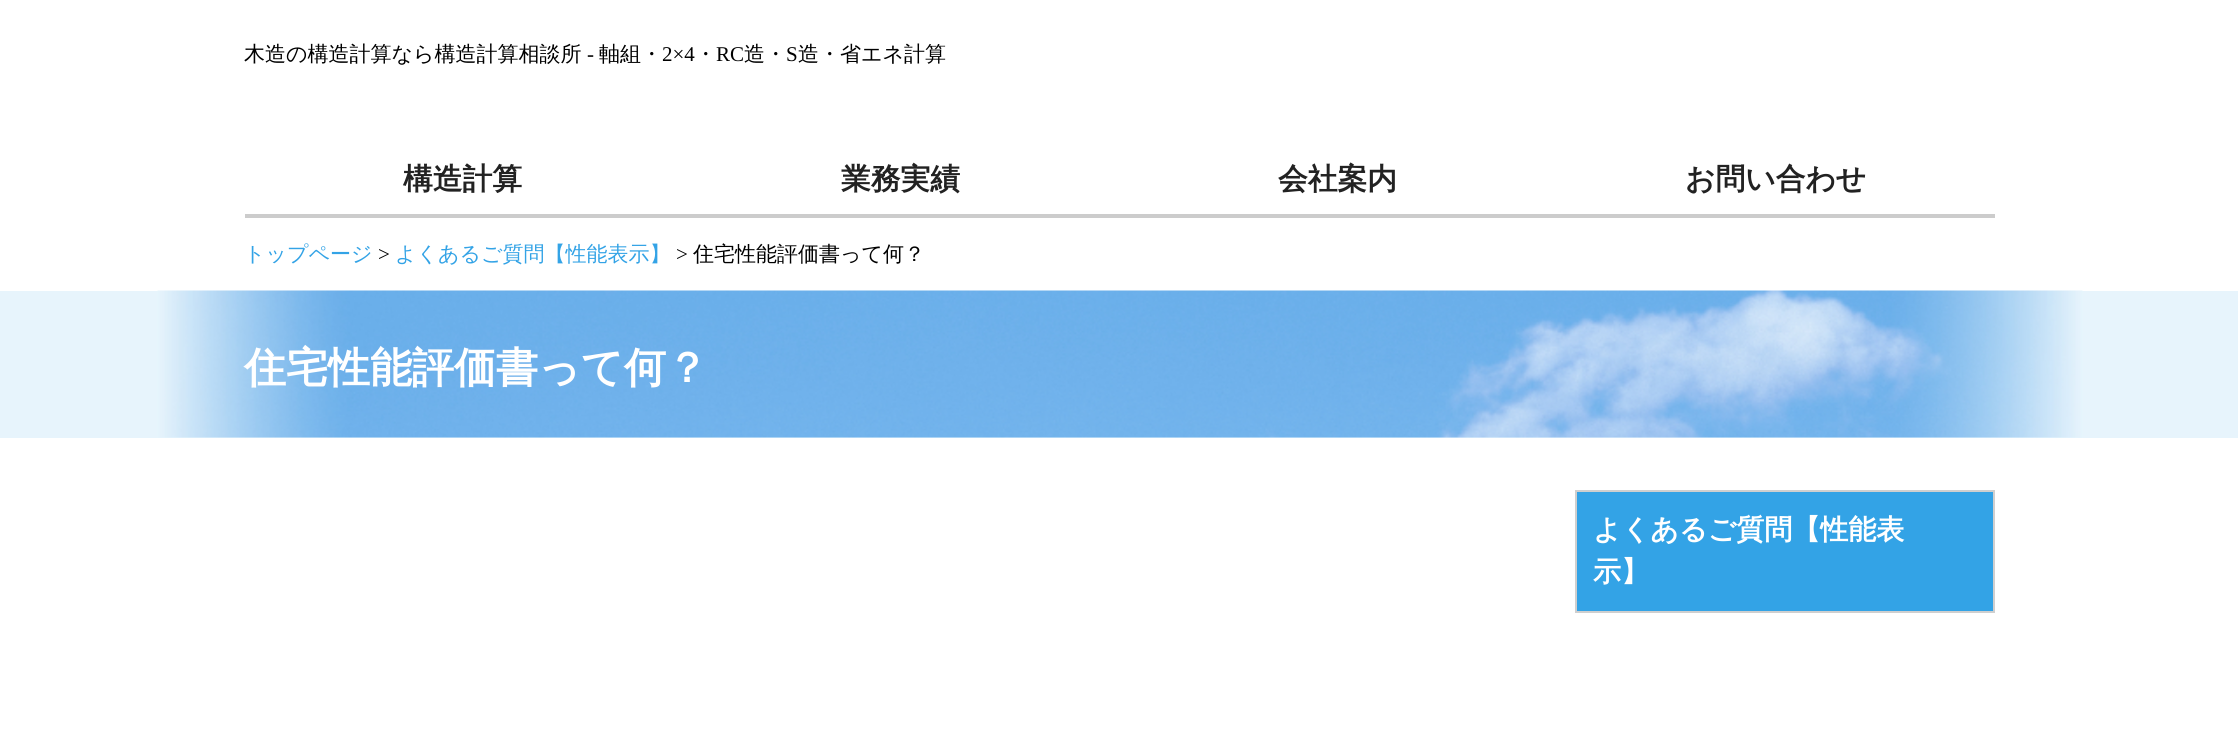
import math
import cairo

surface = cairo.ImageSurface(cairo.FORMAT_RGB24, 2238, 740)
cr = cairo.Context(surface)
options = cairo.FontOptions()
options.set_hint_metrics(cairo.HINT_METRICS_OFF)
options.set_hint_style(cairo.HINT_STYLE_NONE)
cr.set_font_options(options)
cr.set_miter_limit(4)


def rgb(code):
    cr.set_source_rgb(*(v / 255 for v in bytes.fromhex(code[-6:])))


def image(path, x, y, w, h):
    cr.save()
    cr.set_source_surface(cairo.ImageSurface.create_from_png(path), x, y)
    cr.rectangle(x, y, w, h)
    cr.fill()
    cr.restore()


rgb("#e7f4fc")
cr.paint()
rgb("#ffffff")
cr.rectangle(0, 0, 2238, 291)
cr.fill()
rgb("#cccccc")
cr.rectangle(245, 214, 1750, 4)
cr.fill()
image("img/1.png", 157, 290, 1926, 148)
rgb("#ffffff")
cr.rectangle(0, 438, 2238, 302)
cr.fill()
rgb("#33a3e6")
cr.rectangle(1576, 491, 418, 121)
cr.fill_preserve()
rgb("#cfcfcf")
cr.stroke()
cr.select_font_face("WenQuanYi Zen Hei Medium")
cr.set_font_size(21)
rgb("#000000")
cr.move_to(244, 61)
cr.show_text("木造の構造計算なら構造計算相談所")
cr.select_font_face("Liberation Serif")
cr.move_to(587, 61)
cr.show_text("-")
cr.select_font_face("WenQuanYi Zen Hei Medium")
cr.move_to(599, 61)
cr.show_text("軸組・")
cr.select_font_face("Liberation Serif")
cr.move_to(662, 61)
cr.show_text("2×4")
cr.select_font_face("WenQuanYi Zen Hei Medium")
cr.move_to(695, 61)
cr.show_text("・")
cr.select_font_face("Liberation Serif")
cr.move_to(716, 61)
cr.show_text("RC")
cr.select_font_face("WenQuanYi Zen Hei Medium")
cr.move_to(744, 61)
cr.show_text("造・")
cr.select_font_face("Liberation Serif")
cr.move_to(786, 61)
cr.show_text("S")
cr.select_font_face("WenQuanYi Zen Hei Medium")
cr.move_to(798, 61)
cr.show_text("造・省エネ計算")
cr.select_font_face("WenQuanYi Zen Hei", cairo.FONT_SLANT_NORMAL, cairo.FONT_WEIGHT_BOLD)
cr.set_font_size(29.75)
rgb("#222222")
for x, y, s in [
    (403, 189, "構造計算"),
    (841, 189, "業務実績"),
    (1278, 189, "会社案内"),
    (1685, 189, "お問い合わせ"),
]:
    cr.move_to(x, y)
    cr.show_text(s)
cr.select_font_face("WenQuanYi Zen Hei Medium")
cr.set_font_size(21)
rgb("#33a3e6")
cr.move_to(244, 261)
cr.show_text("トップページ")
cr.select_font_face("Liberation Serif")
rgb("#000000")
cr.move_to(378, 261)
cr.show_text(">")
cr.select_font_face("WenQuanYi Zen Hei Medium")
rgb("#33a3e6")
cr.move_to(395, 261)
cr.show_text("よくあるご質問【性能表示】")
cr.select_font_face("Liberation Serif")
rgb("#000000")
cr.move_to(676, 261)
cr.show_text(">")
cr.select_font_face("WenQuanYi Zen Hei Medium")
cr.move_to(693, 261)
cr.show_text("住宅性能評価書って何？")
cr.select_font_face("WenQuanYi Zen Hei", cairo.FONT_SLANT_NORMAL, cairo.FONT_WEIGHT_BOLD)
cr.set_font_size(42)
rgb("#ffffff")
cr.move_to(244, 382)
cr.show_text("住宅性能評価書って何？")
cr.set_font_size(28)
cr.move_to(1593, 539)
cr.show_text("よくあるご質問【性能表")
cr.move_to(1593, 581)
cr.show_text("示】")
surface.write_to_png("page.png")
